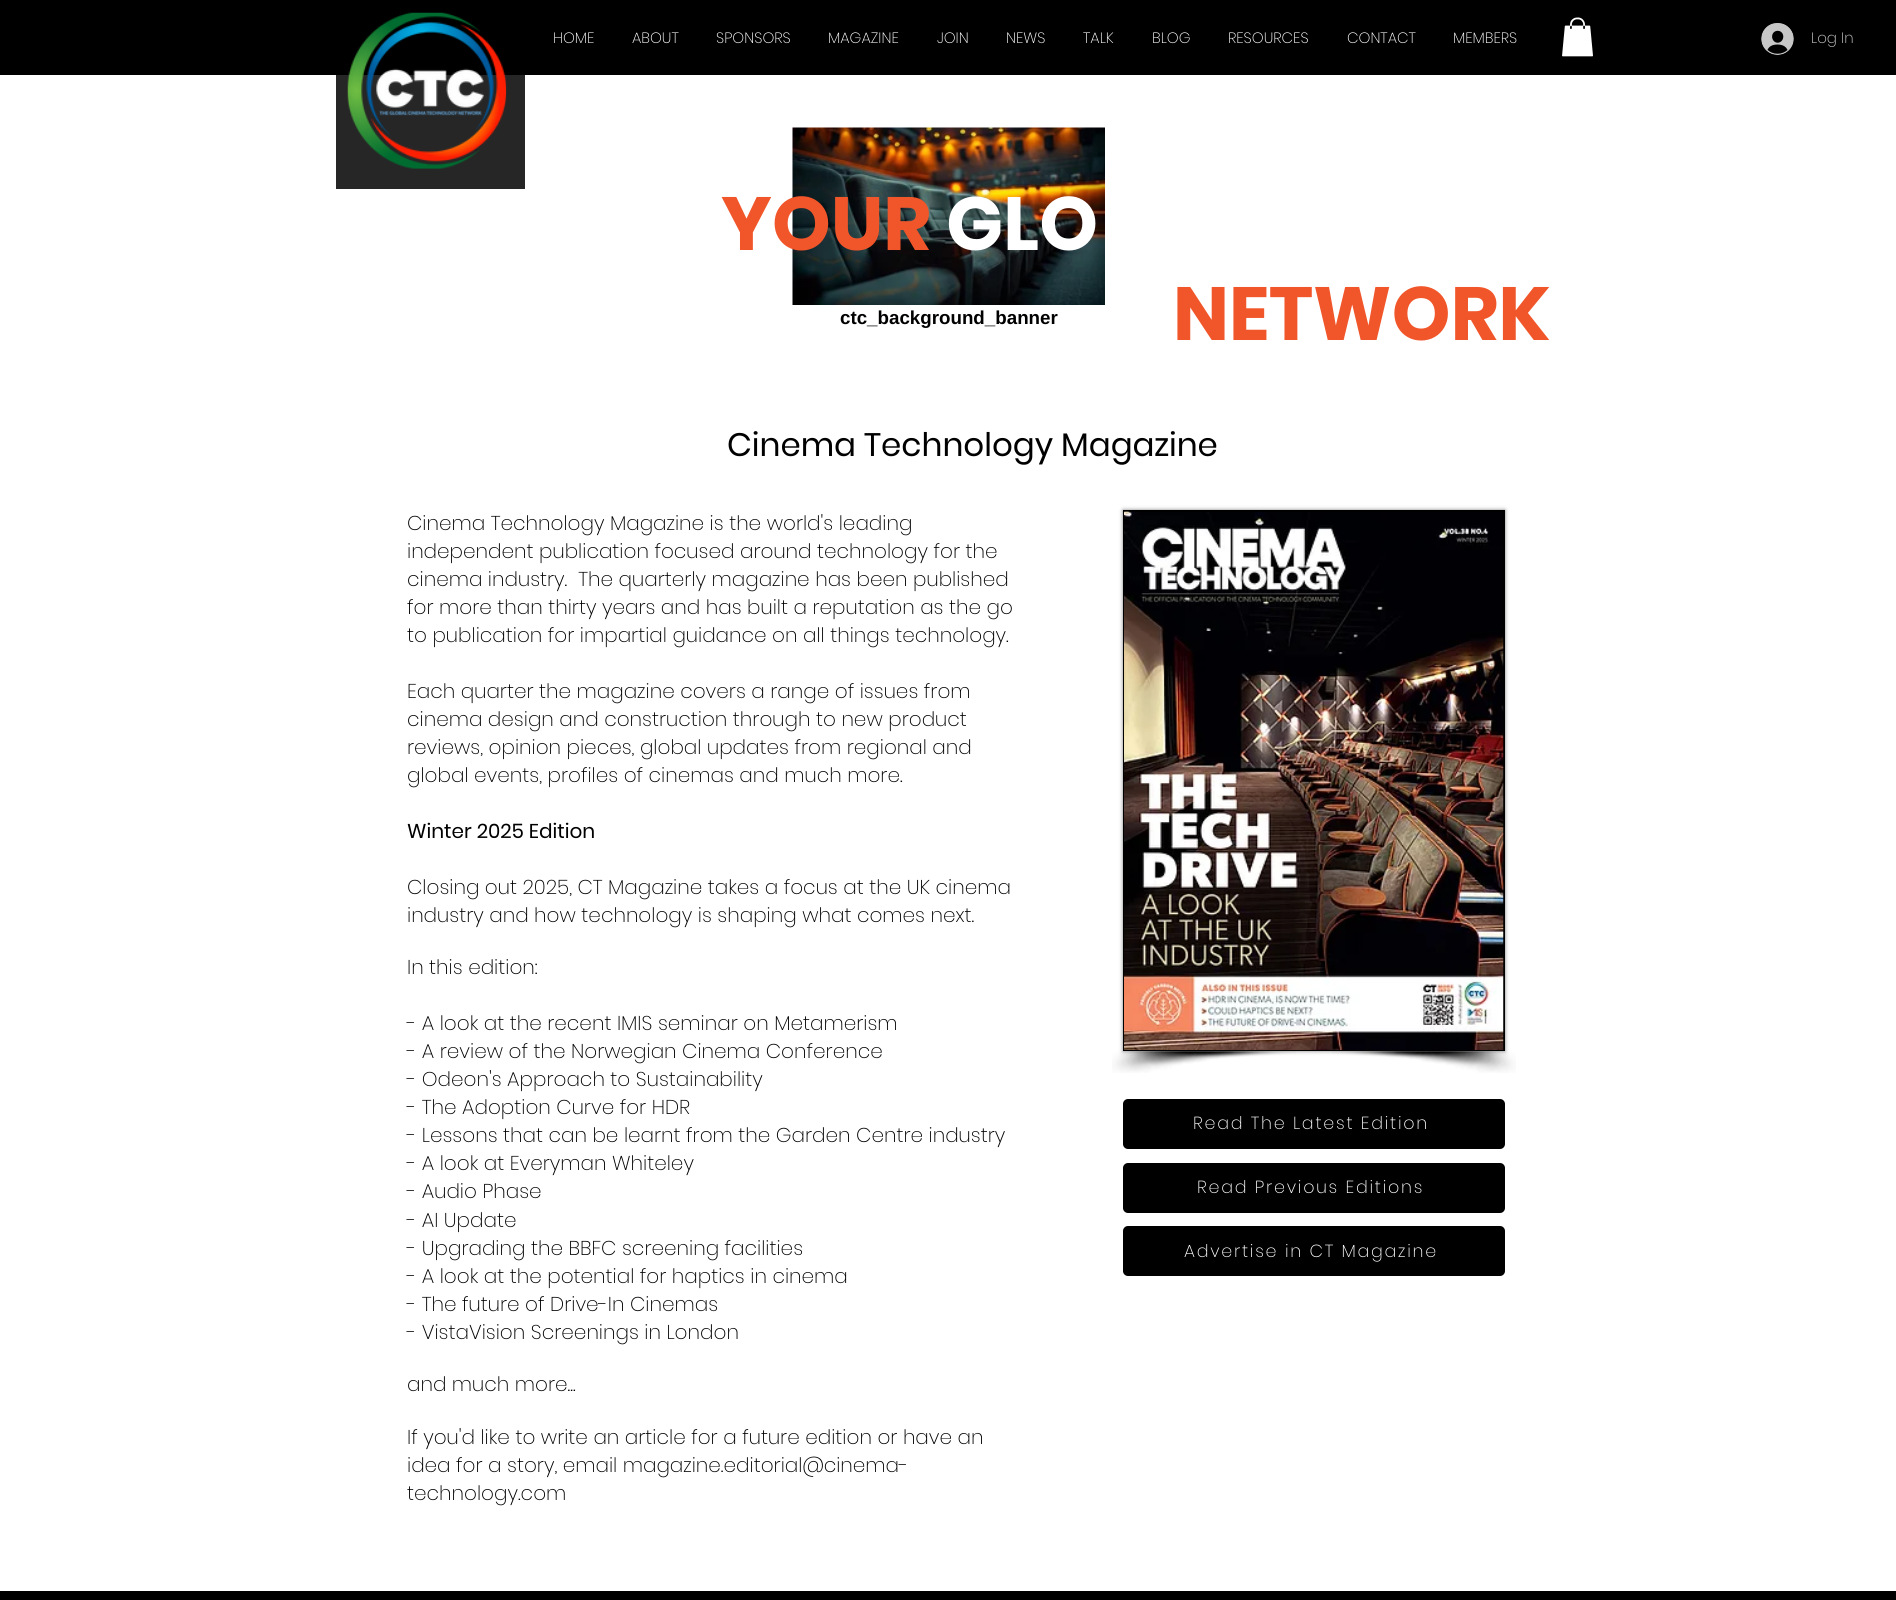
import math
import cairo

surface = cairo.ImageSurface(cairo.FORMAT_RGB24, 1896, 1600)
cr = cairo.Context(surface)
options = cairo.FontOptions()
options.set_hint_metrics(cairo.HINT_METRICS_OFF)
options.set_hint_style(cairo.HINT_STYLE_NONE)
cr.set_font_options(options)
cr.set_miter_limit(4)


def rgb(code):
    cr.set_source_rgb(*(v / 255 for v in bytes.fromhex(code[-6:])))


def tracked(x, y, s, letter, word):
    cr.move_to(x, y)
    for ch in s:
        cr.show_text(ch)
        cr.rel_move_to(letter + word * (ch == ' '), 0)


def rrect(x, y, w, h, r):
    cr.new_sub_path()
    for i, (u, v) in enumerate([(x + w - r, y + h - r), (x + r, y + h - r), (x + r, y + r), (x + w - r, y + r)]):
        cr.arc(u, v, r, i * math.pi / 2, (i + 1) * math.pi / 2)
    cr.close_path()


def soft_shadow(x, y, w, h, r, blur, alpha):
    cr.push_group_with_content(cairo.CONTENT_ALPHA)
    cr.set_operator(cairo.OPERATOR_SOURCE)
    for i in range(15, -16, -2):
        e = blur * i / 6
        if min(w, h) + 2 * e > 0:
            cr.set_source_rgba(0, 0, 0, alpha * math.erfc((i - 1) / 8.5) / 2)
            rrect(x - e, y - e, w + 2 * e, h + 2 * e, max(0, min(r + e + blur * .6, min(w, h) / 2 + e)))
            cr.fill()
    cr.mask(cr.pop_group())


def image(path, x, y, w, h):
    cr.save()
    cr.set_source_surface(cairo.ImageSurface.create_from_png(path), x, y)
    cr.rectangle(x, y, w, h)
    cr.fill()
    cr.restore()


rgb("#ffffff")
cr.paint()
rgb("#262626")
cr.rectangle(336, 75, 189, 114)
cr.fill()
rgb("#000000")
cr.rectangle(0, 0, 1896, 75)
cr.fill()
image("img/1.png", 347, 12, 160, 157)
image("img/2.png", 1562, 17, 31, 40)
image("img/3.png", 792, 127, 313, 178)
image("img/4.png", 1761, 23, 33, 32)
rgb("#000000")
soft_shadow(1123, 510, 382, 541, 0, 2, 0.5)
rgb("#000000")
cr.rectangle(1123, 510, 382, 541)
cr.fill()
image("img/5.png", 1124, 511, 380, 539)
image("img/6.png", 1112, 1051, 184, 22)
image("img/7.png", 1332, 1051, 184, 22)
rrect(1123, 1099, 382, 50, 5)
cr.fill()
rrect(1123, 1163, 382, 50, 5)
cr.fill()
rrect(1123, 1226, 382, 50, 5)
cr.fill()
cr.rectangle(0, 1591, 1896, 9)
cr.fill()
cr.select_font_face("Poppins ExtraLight")
cr.set_font_size(15)
rgb("#ffffff")
for x, y, s in [
    (553, 43, "HOME"),
    (632, 43, "ABOUT"),
    (716, 43, "SPONSORS"),
    (828, 43, "MAGAZINE"),
    (937, 43, "JOIN"),
    (1006, 43, "NEWS"),
    (1083, 43, "TALK"),
    (1152, 43, "BLOG"),
    (1228, 43, "RESOURCES"),
    (1347, 43, "CONTACT"),
    (1453, 43, "MEMBERS"),
]:
    cr.move_to(x, y)
    cr.show_text(s)
cr.select_font_face("Poppins", cairo.FONT_SLANT_NORMAL, cairo.FONT_WEIGHT_BOLD)
cr.set_font_size(75)
rgb("#f1562a")
cr.move_to(721, 250)
cr.show_text("YOUR")
rgb("#ffffff")
cr.move_to(946, 250)
cr.show_text("GLO")
rgb("#f1562a")
cr.move_to(1173, 340)
cr.show_text("NETWORK")
cr.select_font_face("Liberation Sans", cairo.FONT_SLANT_NORMAL, cairo.FONT_WEIGHT_BOLD)
cr.set_font_size(18.75)
rgb("#000000")
cr.move_to(840, 324)
cr.show_text("ctc_background_banner")
cr.select_font_face("Poppins ExtraLight")
cr.set_font_size(15)
rgb("#d4d4d4")
cr.move_to(1811, 43)
cr.show_text("Log In")
cr.select_font_face("Poppins")
cr.set_font_size(32.5)
rgb("#000000")
cr.move_to(727, 456)
cr.show_text("Cinema Technology Magazine")
cr.select_font_face("Poppins ExtraLight")
cr.set_font_size(20)
for x, y, s in [
    (407, 530, "Cinema Technology Magazine is the world's leading"),
    (407, 558, "independent publication focused around technology for the"),
    (407, 586, "cinema industry.  The quarterly magazine has been published"),
    (407, 614, "for more than thirty years and has built a reputation as the go"),
    (407, 642, "to publication for impartial guidance on all things technology."),
    (407, 698, "Each quarter the magazine covers a range of issues from"),
    (407, 726, "cinema design and construction through to new product"),
    (407, 754, "reviews, opinion pieces, global updates from regional and"),
    (407, 782, "global events, profiles of cinemas and much more."),
]:
    cr.move_to(x, y)
    cr.show_text(s)
cr.select_font_face("Poppins")
cr.move_to(407, 838)
cr.show_text("Winter 2025 Edition")
cr.select_font_face("Poppins ExtraLight")
for x, y, s in [
    (407, 894, "Closing out 2025, CT Magazine takes a focus at the UK cinema"),
    (407, 922, "industry and how technology is shaping what comes next."),
    (407, 974, "In this edition:"),
    (407, 1030, "- A look at the recent IMIS seminar on Metamerism"),
    (407, 1058, "- A review of the Norwegian Cinema Conference"),
    (407, 1086, "- Odeon's Approach to Sustainability"),
    (407, 1114, "- The Adoption Curve for HDR"),
    (407, 1142, "- Lessons that can be learnt from the Garden Centre industry"),
    (407, 1170, "- A look at Everyman Whiteley"),
    (407, 1198, "- Audio Phase"),
    (407, 1227, "- AI Update"),
    (407, 1255, "- Upgrading the BBFC screening facilities"),
    (407, 1283, "- A look at the potential for haptics in cinema"),
    (407, 1311, "- The future of Drive-In Cinemas"),
    (407, 1339, "- VistaVision Screenings in London"),
    (407, 1391, "and much more..."),
    (407, 1444, "If you'd like to write an article for a future edition or have an"),
    (407, 1472, "idea for a story, email magazine.editorial@cinema-"),
    (407, 1500, "technology.com"),
]:
    cr.move_to(x, y)
    cr.show_text(s)
cr.set_font_size(17.5)
rgb("#ffffff")
for x, y, s in [
    (1193, 1129, "Read The Latest Edition"),
    (1197, 1193, "Read Previous Editions"),
    (1184, 1257, "Advertise in CT Magazine"),
]:
    tracked(x, y, s, 1.75, 0)
surface.write_to_png("page.png")
